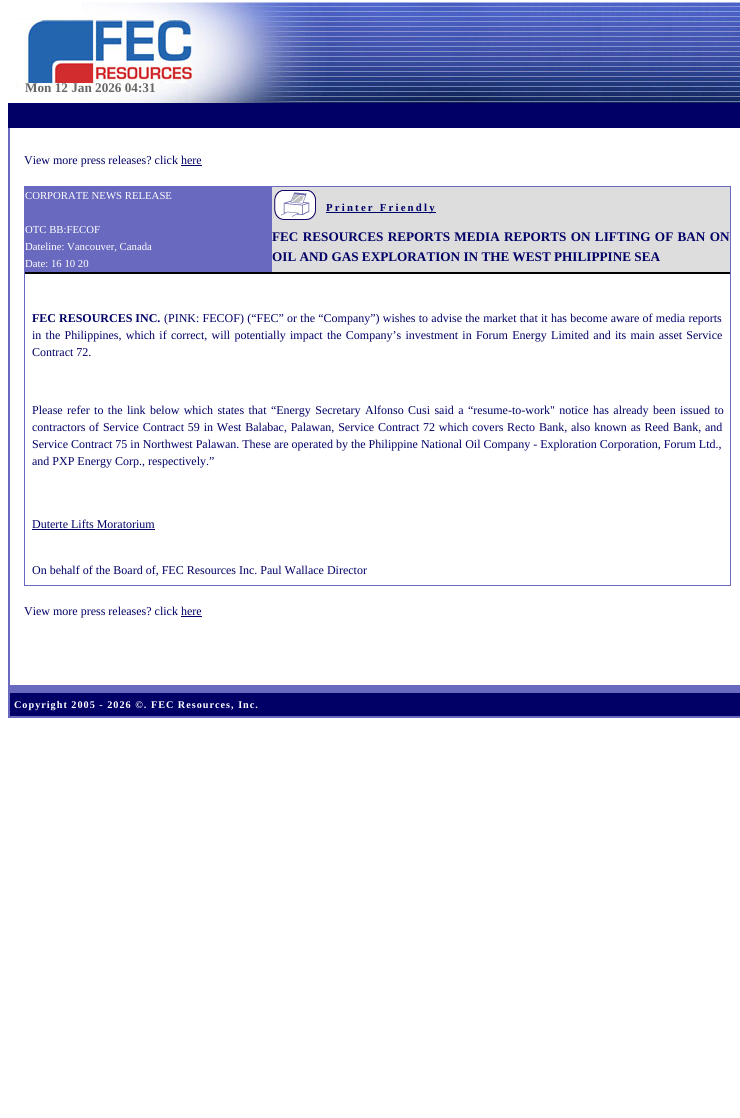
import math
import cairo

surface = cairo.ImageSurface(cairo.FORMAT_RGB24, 740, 1118)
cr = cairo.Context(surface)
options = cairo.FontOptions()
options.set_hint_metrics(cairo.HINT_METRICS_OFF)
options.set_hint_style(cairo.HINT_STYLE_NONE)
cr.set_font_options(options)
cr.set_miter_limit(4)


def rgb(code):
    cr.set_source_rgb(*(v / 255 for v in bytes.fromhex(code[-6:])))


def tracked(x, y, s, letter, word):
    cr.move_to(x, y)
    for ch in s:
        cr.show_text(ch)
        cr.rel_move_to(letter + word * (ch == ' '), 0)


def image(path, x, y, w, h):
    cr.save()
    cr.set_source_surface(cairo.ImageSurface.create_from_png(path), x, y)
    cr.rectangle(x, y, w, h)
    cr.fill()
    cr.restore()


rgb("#ffffff")
cr.paint()
image("img/1.png", 16, 2, 724, 101)
for x, y, w, h, color in [
    (8, 103, 732, 25, "#010066"),
    (8, 716, 732, 2, "#6969bf"),
    (8, 128, 2, 590, "#6969bf"),
    (181, 165, 21, 1, "#000069"),
]:
    rgb(color)
    cr.rectangle(x, y, w, h)
    cr.fill()
cr.rectangle(24.5, 186.5, 706, 399)
rgb("#6969bf")
cr.set_line_width(1)
cr.stroke()
rgb("#dddddd")
cr.rectangle(272, 187, 458, 85)
cr.fill()
rgb("#000000")
cr.rectangle(25, 272, 705, 2)
cr.fill()
image("img/2.png", 274, 190, 42, 30)
for x, y, w, h, color in [
    (326, 212, 110, 1, "#000069"),
    (32, 529, 123, 1, "#000069"),
    (181, 616, 21, 1, "#000069"),
    (10, 685, 730, 8, "#6969bf"),
    (10, 693, 730, 23, "#010066"),
]:
    rgb(color)
    cr.rectangle(x, y, w, h)
    cr.fill()
cr.select_font_face("Liberation Serif", cairo.FONT_SLANT_NORMAL, cairo.FONT_WEIGHT_BOLD)
cr.set_font_size(13.2)
rgb("#666666")
cr.move_to(25, 92)
cr.show_text("Mon 12 Jan 2026 04:31")
cr.select_font_face("Liberation Serif")
cr.set_font_size(12)
rgb("#000066")
cr.move_to(24, 164)
cr.show_text("View more press releases? click")
cr.move_to(181, 164)
cr.show_text("here")
cr.select_font_face("Liberation Serif", cairo.FONT_SLANT_NORMAL, cairo.FONT_WEIGHT_BOLD)
cr.set_font_size(10.75)
tracked(326, 211, "Printer Friendly", 2.2, 0)
cr.set_font_size(13.2)
tracked(272, 241, "FEC RESOURCES REPORTS MEDIA REPORTS ON LIFTING OF BAN ON", 0, 1)
rgb("#6969bf")
cr.rectangle(25, 187, 247, 85)
cr.fill()
cr.select_font_face("Liberation Serif")
cr.set_font_size(10.75)
rgb("#ffffff")
for x, y, s in [
    (25, 267, "Date: 16 10 20"),
    (25, 250, "Dateline: Vancouver, Canada"),
    (25, 233, "OTC BB:FECOF"),
    (25, 199, "CORPORATE NEWS RELEASE"),
]:
    cr.move_to(x, y)
    cr.show_text(s)
cr.select_font_face("Liberation Serif", cairo.FONT_SLANT_NORMAL, cairo.FONT_WEIGHT_BOLD)
cr.set_font_size(13.2)
rgb("#000066")
cr.move_to(272, 261)
cr.show_text("OIL AND GAS EXPLORATION IN THE WEST PHILIPPINE SEA")
cr.set_font_size(12)
cr.move_to(32, 322)
cr.show_text("FEC RESOURCES INC.")
cr.select_font_face("Liberation Serif")
tracked(164, 322, "(PINK: FECOF) (“FEC” or the “Company”) wishes to advise the market that it has become aware of media reports", 0, 0.25)
tracked(32, 339, "in the Philippines, which if correct, will potentially impact the Company’s investment in Forum Energy Limited and its main asset Service", 0, 1.25)
cr.move_to(32, 356)
cr.show_text("Contract 72.")
tracked(32, 414, "Please refer to the link below which states that “Energy Secretary Alfonso Cusi said a “resume-to-work\" notice has already been issued to", 0, 1.4)
tracked(32, 431, "contractors of Service Contract 59 in West Balabac, Palawan, Service Contract 72 which covers Recto Bank, also known as Reed Bank, and", 0, 0.8)
for x, y, s in [
    (32, 448, "Service Contract 75 in Northwest Palawan. These are operated by the Philippine National Oil Company - Exploration Corporation, Forum Ltd.,"),
    (32, 465, "and PXP Energy Corp., respectively.”"),
    (32, 528, "Duterte Lifts Moratorium"),
    (32, 574, "On behalf of the Board of, FEC Resources Inc. Paul Wallace Director"),
    (24, 615, "View more press releases? click"),
    (181, 615, "here"),
]:
    cr.move_to(x, y)
    cr.show_text(s)
cr.select_font_face("Liberation Serif", cairo.FONT_SLANT_NORMAL, cairo.FONT_WEIGHT_BOLD)
cr.set_font_size(10.2)
rgb("#ffffff")
tracked(14, 708, "Copyright 2005 - 2026 ©. FEC Resources, Inc.", 1, 0)
surface.write_to_png("page.png")
